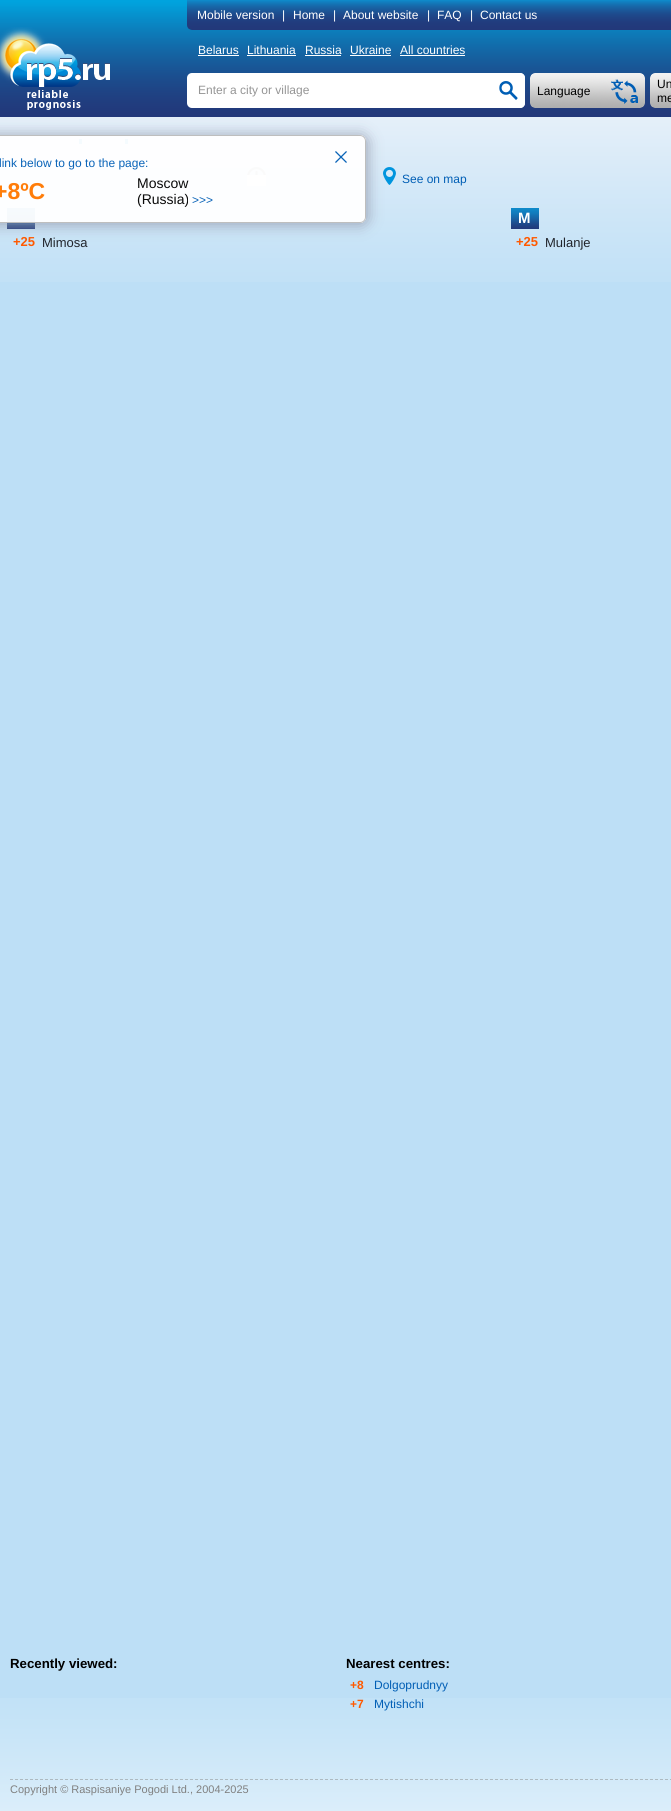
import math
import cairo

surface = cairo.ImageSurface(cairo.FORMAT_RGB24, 671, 1811)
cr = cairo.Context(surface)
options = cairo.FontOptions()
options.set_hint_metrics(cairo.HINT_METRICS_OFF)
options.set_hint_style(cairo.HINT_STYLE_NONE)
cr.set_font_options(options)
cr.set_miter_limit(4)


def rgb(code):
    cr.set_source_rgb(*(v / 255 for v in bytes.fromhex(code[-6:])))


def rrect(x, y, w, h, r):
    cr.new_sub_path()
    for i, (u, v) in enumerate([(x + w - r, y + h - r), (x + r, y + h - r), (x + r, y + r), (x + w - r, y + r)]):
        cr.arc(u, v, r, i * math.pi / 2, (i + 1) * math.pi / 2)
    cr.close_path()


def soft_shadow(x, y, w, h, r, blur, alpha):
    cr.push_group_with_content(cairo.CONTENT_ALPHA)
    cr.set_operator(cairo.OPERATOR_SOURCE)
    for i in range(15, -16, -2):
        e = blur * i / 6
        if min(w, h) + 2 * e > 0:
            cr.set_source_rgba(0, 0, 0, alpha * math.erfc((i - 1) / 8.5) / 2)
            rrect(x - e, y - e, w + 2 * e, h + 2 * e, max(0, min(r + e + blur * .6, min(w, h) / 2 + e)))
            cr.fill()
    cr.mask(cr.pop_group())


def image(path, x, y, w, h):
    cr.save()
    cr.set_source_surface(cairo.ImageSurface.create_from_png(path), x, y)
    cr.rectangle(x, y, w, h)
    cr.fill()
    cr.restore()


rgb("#bddff6")
cr.paint()
image("img/1.png", 0, 123, 671, 159)
image("img/2.png", 0, 0, 671, 123)
image("img/3.png", 187, 0, 484, 30)
image("img/4.png", 0, 27, 110, 83)
for x, y, w, h, color in [
    (198, 55, 41, 1, "#ffffff"),
    (247, 55, 49, 1, "#ffffff"),
    (305, 55, 36, 1, "#ffffff"),
    (350, 55, 41, 1, "#ffffff"),
    (400, 55, 65, 1, "#ffffff"),
]:
    rgb(color)
    cr.rectangle(x, y, w, h)
    cr.fill()
rrect(187, 73, 338, 35, 5)
cr.fill()
image("img/5.png", 499, 73, 26, 35)
image("img/6.png", 530, 73, 115, 35)
image("img/7.png", 650, 73, 21, 35)
rgb("#0096de")
cr.rectangle(79, 139, 3, 5)
cr.fill()
cr.rectangle(125, 139, 3, 5)
cr.fill()
image("img/8.png", 247, 167, 19, 19)
image("img/9.png", 383, 167, 13, 18)
image("img/10.png", 7, 208, 28, 21)
image("img/10.png", 511, 208, 28, 21)
cr.save()
cr.set_fill_rule(cairo.FILL_RULE_EVEN_ODD)
cr.new_path()
cr.move_to(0, 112)
cr.line_to(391, 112)
cr.line_to(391, 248)
cr.line_to(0, 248)
cr.close_path()
cr.move_to(-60, 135)
cr.line_to(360, 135)
cr.curve_to(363.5, 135, 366, 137.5, 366, 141)
cr.line_to(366, 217)
cr.curve_to(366, 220.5, 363.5, 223, 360, 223)
cr.line_to(-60, 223)
cr.curve_to(-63.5, 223, -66, 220.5, -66, 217)
cr.line_to(-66, 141)
cr.curve_to(-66, 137.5, -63.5, 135, -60, 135)
cr.close_path()
cr.clip()
rgb("#969caf")
soft_shadow(-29, 136, 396, 88, 6, 7.5, 0.96)
cr.restore()
cr.set_source_rgba(1, 1, 1, 0.96)
rrect(-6, 135, 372, 88, 6)
cr.fill()
rrect(-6.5, 135.5, 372, 87, 5.5)
cr.set_source_rgba(0.733, 0.733, 0.733, 0.96)
cr.set_line_width(1)
cr.stroke()
image("img/11.png", 335, 151, 12, 12)
cr.set_source_rgba(1, 1, 1, 0.96)
cr.rectangle(247, 175, 19, 11)
cr.fill()
image("img/12.png", 0, 1698, 671, 113)
cr.new_path()
cr.move_to(10, 1779.5)
cr.line_to(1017, 1779.5)
rgb("#aeb9c0")
cr.set_dash([3, 2])
cr.stroke()
cr.select_font_face("Liberation Sans")
cr.set_font_size(12)
rgb("#ffffff")
for x, y, s in [
    (197, 19, "Mobile version"),
    (282, 19, "|"),
    (293, 19, "Home"),
    (333, 19, "|"),
    (343, 19, "About website"),
    (427, 19, "|"),
    (437, 19, "FAQ"),
    (470, 19, "|"),
    (480, 19, "Contact us"),
    (198, 54, "Belarus"),
    (247, 54, "Lithuania"),
    (305, 54, "Russia"),
    (350, 54, "Ukraine"),
    (400, 54, "All countries"),
]:
    cr.move_to(x, y)
    cr.show_text(s)
rgb("#959595")
cr.move_to(198, 94)
cr.show_text("Enter a city or village")
rgb("#000000")
for x, y, s in [
    (537, 95, "Language"),
    (657, 88, "Un"),
    (657, 102, "me"),
]:
    cr.move_to(x, y)
    cr.show_text(s)
rgb("#005eb5")
cr.move_to(402, 183)
cr.show_text("See on map")
cr.select_font_face("Liberation Sans", cairo.FONT_SLANT_NORMAL, cairo.FONT_WEIGHT_BOLD)
cr.set_font_size(13)
rgb("#ff5900")
cr.move_to(13, 246)
cr.show_text("+25")
cr.select_font_face("Liberation Sans")
rgb("#21242b")
cr.move_to(42, 247)
cr.show_text("Mimosa")
cr.select_font_face("Liberation Sans", cairo.FONT_SLANT_NORMAL, cairo.FONT_WEIGHT_BOLD)
cr.set_font_size(15)
rgb("#ffffff")
cr.move_to(518, 223)
cr.show_text("M")
cr.set_font_size(13)
rgb("#ff5900")
cr.move_to(516, 246)
cr.show_text("+25")
cr.select_font_face("Liberation Sans")
rgb("#21242b")
cr.move_to(545, 247)
cr.show_text("Mulanje")
cr.set_font_size(12)
rgb("#0a64b8")
cr.move_to(-1, 167)
cr.show_text("link below to go to the page:")
cr.select_font_face("Liberation Sans", cairo.FONT_SLANT_NORMAL, cairo.FONT_WEIGHT_BOLD)
cr.set_font_size(23)
rgb("#ff7d0a")
cr.move_to(-6, 199)
cr.show_text("+8ºC")
cr.select_font_face("Liberation Sans")
cr.set_font_size(14)
rgb("#0a0a0a")
cr.move_to(137, 188)
cr.show_text("Moscow")
cr.move_to(137, 204)
cr.show_text("(Russia)")
cr.set_font_size(12)
rgb("#0a64b8")
cr.move_to(192, 204)
cr.show_text(">>>")
cr.select_font_face("Liberation Sans", cairo.FONT_SLANT_NORMAL, cairo.FONT_WEIGHT_BOLD)
cr.set_font_size(13.25)
rgb("#000000")
cr.move_to(10, 1668)
cr.show_text("Recently viewed:")
cr.move_to(346, 1668)
cr.show_text("Nearest centres:")
cr.set_font_size(12)
rgb("#ff5900")
cr.move_to(350, 1689)
cr.show_text("+8")
cr.select_font_face("Liberation Sans")
rgb("#005eb5")
cr.move_to(374, 1689)
cr.show_text("Dolgoprudnyy")
cr.select_font_face("Liberation Sans", cairo.FONT_SLANT_NORMAL, cairo.FONT_WEIGHT_BOLD)
rgb("#ff5900")
cr.move_to(350, 1708)
cr.show_text("+7")
cr.select_font_face("Liberation Sans")
rgb("#005eb5")
cr.move_to(374, 1708)
cr.show_text("Mytishchi")
cr.set_font_size(11)
rgb("#808080")
cr.move_to(10, 1793)
cr.show_text("Copyright © Raspisaniye Pogodi Ltd., 2004-2025")
surface.write_to_png("page.png")
